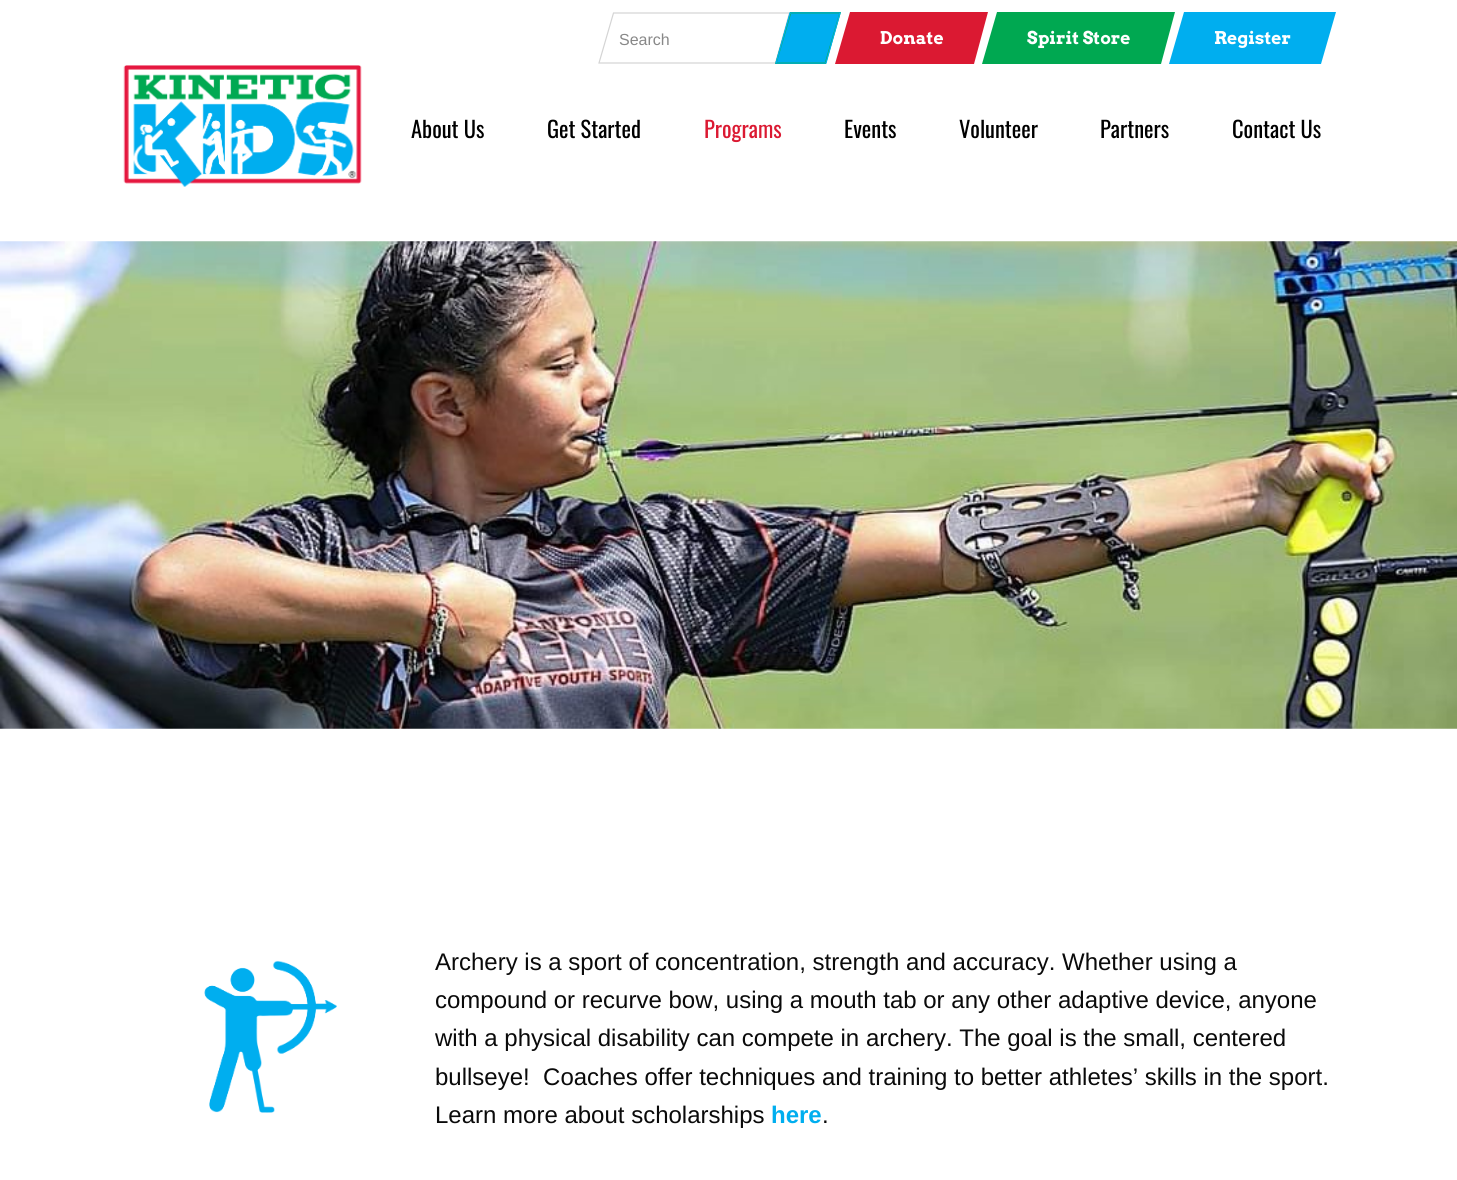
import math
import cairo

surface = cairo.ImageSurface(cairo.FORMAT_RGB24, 1457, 1180)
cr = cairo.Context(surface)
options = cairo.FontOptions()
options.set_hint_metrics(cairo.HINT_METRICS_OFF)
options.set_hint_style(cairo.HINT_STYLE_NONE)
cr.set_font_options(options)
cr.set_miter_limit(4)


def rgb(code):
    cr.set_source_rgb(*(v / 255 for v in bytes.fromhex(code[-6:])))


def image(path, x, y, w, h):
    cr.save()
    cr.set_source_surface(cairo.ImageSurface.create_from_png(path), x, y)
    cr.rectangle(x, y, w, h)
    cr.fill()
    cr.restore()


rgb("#ffffff")
cr.paint()
cr.new_path()
cr.move_to(613.5, 13)
cr.line_to(789.5, 13)
cr.line_to(775.5, 63)
cr.line_to(599, 63)
cr.close_path()
rgb("#d4d4d4")
cr.set_line_width(1.2)
cr.stroke()
rgb("#0aad5c")
cr.new_path()
cr.move_to(790, 12)
cr.line_to(841, 12)
cr.line_to(826, 64)
cr.line_to(775, 64)
cr.close_path()
cr.fill()
cr.new_path()
cr.move_to(790, 13)
cr.line_to(840, 13)
cr.line_to(826, 63)
cr.line_to(776, 63)
cr.close_path()
rgb("#00aeef")
cr.stroke()
cr.new_path()
cr.move_to(791, 14)
cr.line_to(839, 14)
cr.line_to(825, 62)
cr.line_to(777, 62)
cr.close_path()
cr.fill()
rgb("#db1932")
cr.new_path()
cr.move_to(850, 12)
cr.line_to(988, 12)
cr.line_to(974, 64)
cr.line_to(835, 64)
cr.close_path()
cr.fill()
rgb("#00a851")
cr.new_path()
cr.move_to(997, 12)
cr.line_to(1175, 12)
cr.line_to(1161, 64)
cr.line_to(982, 64)
cr.close_path()
cr.fill()
rgb("#00aeef")
cr.new_path()
cr.move_to(1184, 12)
cr.line_to(1336, 12)
cr.line_to(1321, 64)
cr.line_to(1169, 64)
cr.close_path()
cr.fill()
image("img/1.png", 123, 65, 239, 122)
image("img/2.png", 0, 241, 1457, 488)
image("img/3.png", 204, 960, 133, 153)
cr.select_font_face("Liberation Sans")
cr.set_font_size(16)
rgb("#888888")
cr.move_to(619, 45)
cr.show_text("Search")
cr.select_font_face("Arvo", cairo.FONT_SLANT_NORMAL, cairo.FONT_WEIGHT_BOLD)
cr.set_font_size(17.5)
rgb("#ffffff")
for x, y, s in [
    (880, 44, "Donate"),
    (1027, 44, "Spirit Store"),
    (1214, 44, "Register"),
]:
    cr.move_to(x, y)
    cr.show_text(s)
cr.select_font_face("Oswald")
cr.set_font_size(22.5)
rgb("#000000")
cr.move_to(411, 138)
cr.show_text("About Us")
cr.move_to(547, 138)
cr.show_text("Get Started")
rgb("#db1932")
cr.move_to(704, 138)
cr.show_text("Programs")
rgb("#000000")
for x, y, s in [
    (844, 138, "Events"),
    (959, 138, "Volunteer"),
    (1100, 138, "Partners"),
    (1232, 138, "Contact Us"),
]:
    cr.move_to(x, y)
    cr.show_text(s)
cr.select_font_face("Liberation Sans")
cr.set_font_size(24)
rgb("#0a0a0a")
for x, y, s in [
    (435, 970, "Archery is a sport of concentration, strength and accuracy. Whether using a"),
    (435, 1008, "compound or recurve bow, using a mouth tab or any other adaptive device, anyone"),
    (435, 1046, "with a physical disability can compete in archery. The goal is the small, centered"),
    (435, 1085, "bullseye!  Coaches offer techniques and training to better athletes’ skills in the sport."),
    (435, 1123, "Learn more about scholarships"),
]:
    cr.move_to(x, y)
    cr.show_text(s)
cr.select_font_face("Liberation Sans", cairo.FONT_SLANT_NORMAL, cairo.FONT_WEIGHT_BOLD)
rgb("#00aeef")
cr.move_to(771, 1123)
cr.show_text("here")
cr.select_font_face("Liberation Sans")
rgb("#0a0a0a")
cr.move_to(822, 1123)
cr.show_text(".")
surface.write_to_png("page.png")
